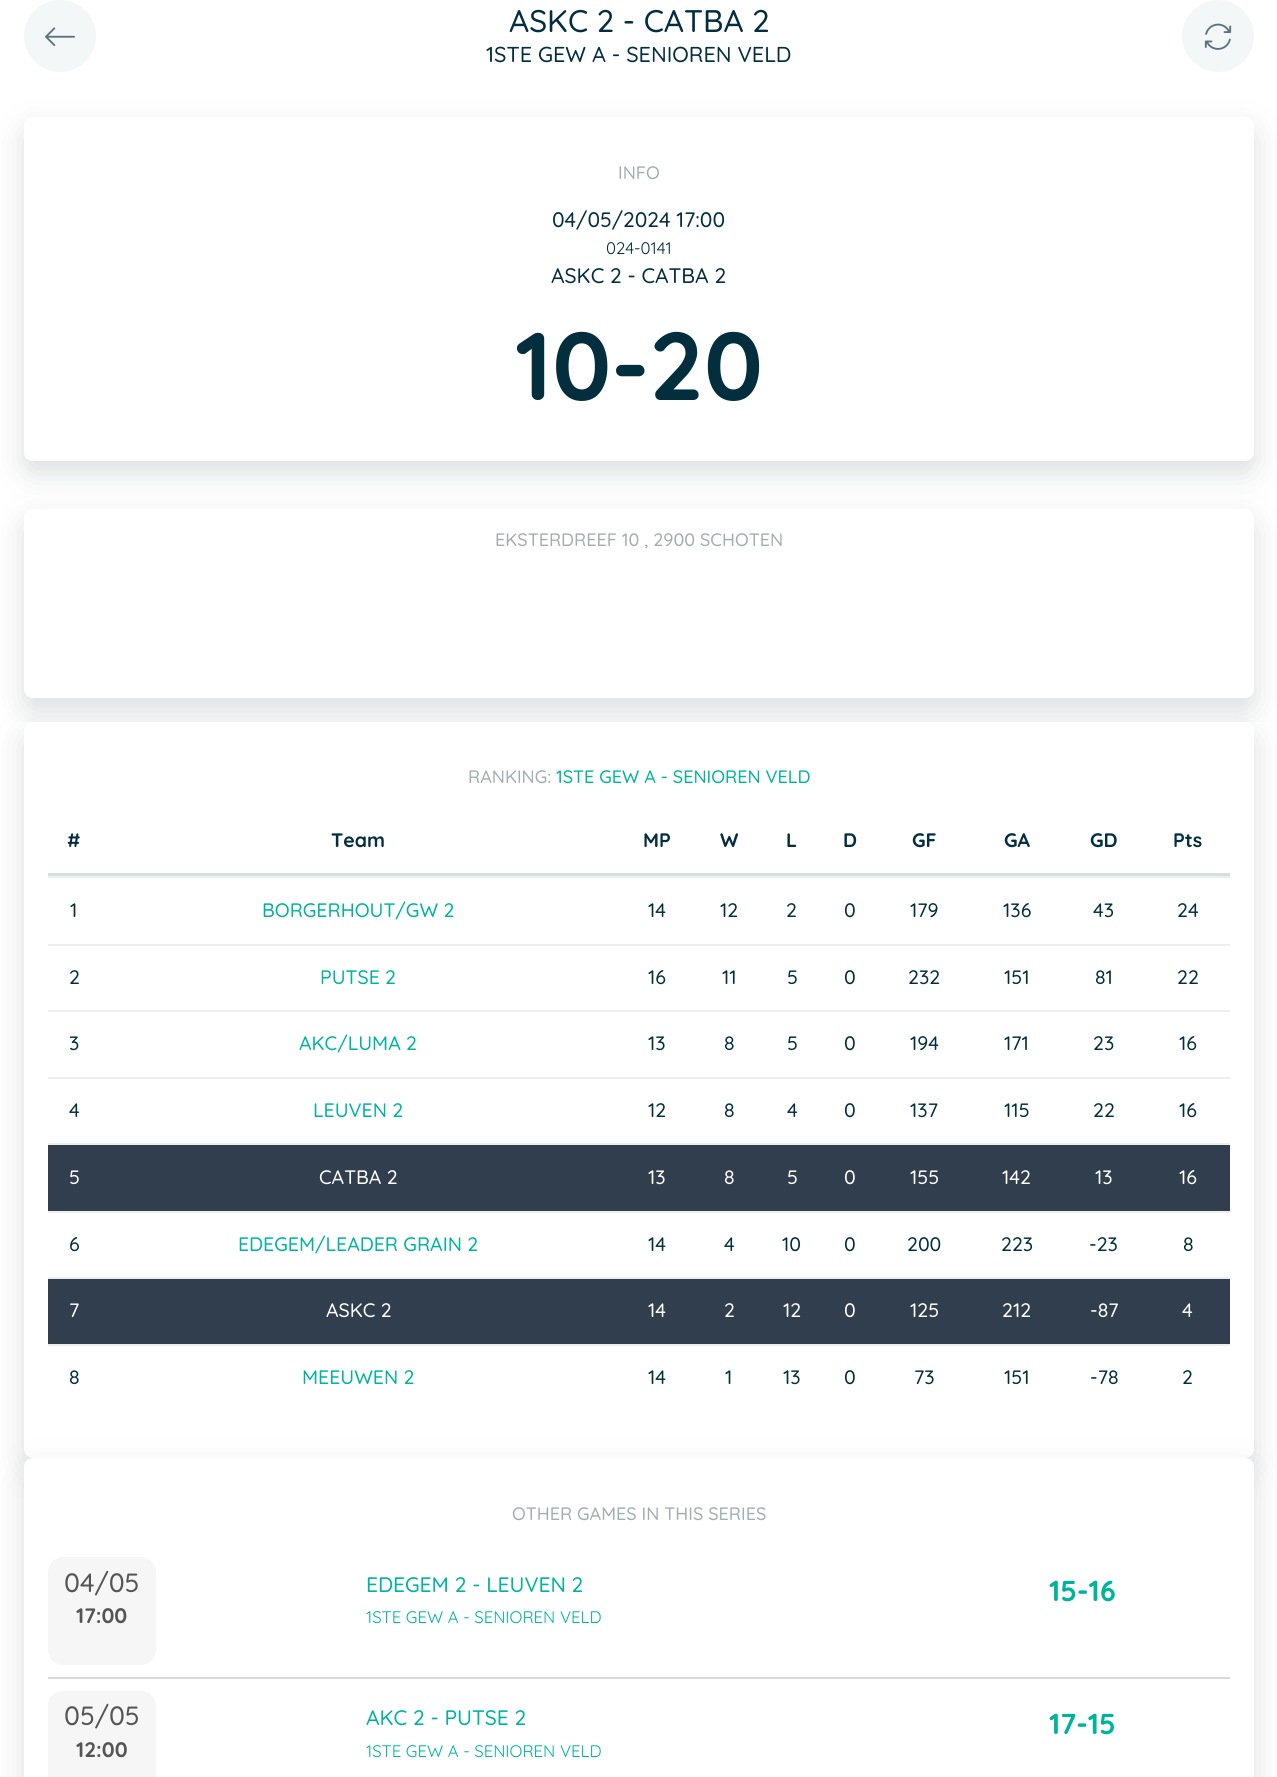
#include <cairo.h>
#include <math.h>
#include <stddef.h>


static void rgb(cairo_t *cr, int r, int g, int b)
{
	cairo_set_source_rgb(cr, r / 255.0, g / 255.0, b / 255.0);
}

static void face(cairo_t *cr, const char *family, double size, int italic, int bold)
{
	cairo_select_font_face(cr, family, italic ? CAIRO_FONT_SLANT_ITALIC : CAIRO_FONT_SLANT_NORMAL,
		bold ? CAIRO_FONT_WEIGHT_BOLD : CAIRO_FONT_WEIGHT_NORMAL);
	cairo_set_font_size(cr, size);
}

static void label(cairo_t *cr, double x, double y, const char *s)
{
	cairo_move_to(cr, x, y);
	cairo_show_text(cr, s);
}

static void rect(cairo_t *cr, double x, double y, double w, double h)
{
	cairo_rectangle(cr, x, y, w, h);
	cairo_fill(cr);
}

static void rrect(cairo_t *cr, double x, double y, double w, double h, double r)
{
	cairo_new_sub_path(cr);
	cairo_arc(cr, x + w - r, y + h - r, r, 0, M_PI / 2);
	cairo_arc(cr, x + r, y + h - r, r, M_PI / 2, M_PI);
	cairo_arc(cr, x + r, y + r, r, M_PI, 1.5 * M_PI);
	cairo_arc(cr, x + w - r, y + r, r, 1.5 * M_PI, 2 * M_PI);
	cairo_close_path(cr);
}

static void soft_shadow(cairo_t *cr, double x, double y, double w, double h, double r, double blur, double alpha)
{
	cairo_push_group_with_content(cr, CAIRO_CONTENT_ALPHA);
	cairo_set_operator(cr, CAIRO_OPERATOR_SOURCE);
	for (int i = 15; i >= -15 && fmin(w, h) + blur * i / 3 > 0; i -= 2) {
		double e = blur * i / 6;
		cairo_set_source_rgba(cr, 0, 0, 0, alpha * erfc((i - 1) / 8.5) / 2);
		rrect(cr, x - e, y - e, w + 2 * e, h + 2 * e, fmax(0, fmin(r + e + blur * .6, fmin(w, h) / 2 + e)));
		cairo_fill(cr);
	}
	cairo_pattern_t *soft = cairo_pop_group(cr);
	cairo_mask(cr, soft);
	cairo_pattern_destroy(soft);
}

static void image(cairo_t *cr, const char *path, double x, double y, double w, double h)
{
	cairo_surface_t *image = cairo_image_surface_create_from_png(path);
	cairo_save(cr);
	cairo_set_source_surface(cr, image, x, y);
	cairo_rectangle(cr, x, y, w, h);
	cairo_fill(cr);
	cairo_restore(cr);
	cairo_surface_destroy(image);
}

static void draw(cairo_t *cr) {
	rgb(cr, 255, 255, 255);
	cairo_paint(cr);
	rgb(cr, 244, 247, 247);
	cairo_arc(cr, 60, 36, 35, 0, 2 * M_PI);
	cairo_fill_preserve(cr);
	cairo_stroke(cr);
	image(cr, "image0.png", 45, 27, 30, 20);
	face(cr, "Quicksand Medium", 31.25, 0, 0);
	rgb(cr, 2, 46, 62);
	label(cr, 509, 32, "ASKC 2 - CATBA 2");
	face(cr, "Quicksand Medium", 21.6, 0, 0);
	label(cr, 486, 62, "1STE GEW A - SENIOREN VELD");
	rgb(cr, 244, 247, 247);
	cairo_new_path(cr);
	cairo_arc(cr, 1218, 36, 35, 0, 2 * M_PI);
	cairo_fill_preserve(cr);
	cairo_stroke(cr);
	image(cr, "image1.png", 1204, 23, 28, 27);
	rgb(cr, 71, 92, 93);
	soft_shadow(cr, 24, 129, 1230, 344, 9, 15, 0.2);
	rgb(cr, 255, 255, 255);
	rrect(cr, 24, 117, 1230, 344, 9);
	cairo_fill(cr);
	face(cr, "Quicksand Medium", 18, 0, 0);
	rgb(cr, 163, 173, 174);
	label(cr, 618, 179, "INFO");
	face(cr, "Quicksand Medium", 21, 0, 0);
	rgb(cr, 2, 46, 62);
	label(cr, 552, 227, "04/05/2024 17:00");
	face(cr, "Quicksand", 16.75, 0, 0);
	label(cr, 606, 254, "024-0141");
	face(cr, "Quicksand Medium", 21, 0, 0);
	label(cr, 551, 283, "ASKC 2 - CATBA 2");
	face(cr, "Quicksand", 96, 0, 1);
	label(cr, 515, 400, "10-20");
	cairo_save(cr);
	cairo_rectangle(cr, 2, 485, 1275, 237);
	cairo_clip(cr);
	rgb(cr, 71, 92, 93);
	soft_shadow(cr, 24, 521, 1230, 189, 9, 15, 0.2);
	cairo_restore(cr);
	rgb(cr, 255, 255, 255);
	rrect(cr, 24, 509, 1230, 189, 9);
	cairo_fill(cr);
	face(cr, "Quicksand Medium", 18, 0, 0);
	rgb(cr, 163, 173, 174);
	label(cr, 495, 546, "EKSTERDREEF 10 , 2900 SCHOTEN");
	rgb(cr, 71, 92, 93);
	soft_shadow(cr, 24, 734, 1230, 736, 9, 15, 0.2);
	rgb(cr, 255, 255, 255);
	rrect(cr, 24, 722, 1230, 736, 9);
	cairo_fill(cr);
	rgb(cr, 163, 173, 174);
	label(cr, 468, 783, "RANKING:");
	rgb(cr, 0, 180, 156);
	label(cr, 556, 783, "1STE GEW A - SENIOREN VELD");
	rgb(cr, 212, 223, 225);
	rect(cr, 48, 873, 1182, 3);
	face(cr, "Quicksand", 19.5, 0, 1);
	rgb(cr, 2, 46, 62);
	label(cr, 67, 847, "#");
	label(cr, 331, 847, "Team");
	label(cr, 643, 847, "MP");
	label(cr, 720, 847, "W");
	label(cr, 786, 847, "L");
	label(cr, 843, 847, "D");
	label(cr, 912, 847, "GF");
	label(cr, 1004, 847, "GA");
	label(cr, 1090, 847, "GD");
	label(cr, 1173, 847, "Pts");
	rgb(cr, 238, 238, 238);
	rect(cr, 48, 876, 1182, 2);
	face(cr, "Quicksand Medium", 19.5, 0, 0);
	rgb(cr, 2, 46, 62);
	label(cr, 70, 917, "1");
	rgb(cr, 0, 180, 156);
	label(cr, 262, 917, "BORGERHOUT/GW 2");
	rgb(cr, 2, 46, 62);
	label(cr, 648, 917, "14");
	label(cr, 720, 917, "12");
	label(cr, 786, 917, "2");
	label(cr, 844, 917, "0");
	label(cr, 910, 917, "179");
	label(cr, 1003, 917, "136");
	label(cr, 1093, 917, "43");
	label(cr, 1177, 917, "24");
	rgb(cr, 238, 238, 238);
	rect(cr, 48, 944, 1182, 2);
	rgb(cr, 2, 46, 62);
	label(cr, 69, 984, "2");
	rgb(cr, 0, 180, 156);
	label(cr, 320, 984, "PUTSE 2");
	rgb(cr, 2, 46, 62);
	label(cr, 648, 984, "16");
	label(cr, 722, 984, "11");
	label(cr, 787, 984, "5");
	label(cr, 844, 984, "0");
	label(cr, 908, 984, "232");
	label(cr, 1004, 984, "151");
	label(cr, 1095, 984, "81");
	label(cr, 1177, 984, "22");
	rgb(cr, 238, 238, 238);
	rect(cr, 48, 1010, 1182, 2);
	rgb(cr, 2, 46, 62);
	label(cr, 69, 1050, "3");
	rgb(cr, 0, 180, 156);
	label(cr, 299, 1050, "AKC/LUMA 2");
	rgb(cr, 2, 46, 62);
	label(cr, 648, 1050, "13");
	label(cr, 724, 1050, "8");
	label(cr, 787, 1050, "5");
	label(cr, 844, 1050, "0");
	label(cr, 910, 1050, "194");
	label(cr, 1004, 1050, "171");
	label(cr, 1093, 1050, "23");
	label(cr, 1179, 1050, "16");
	rgb(cr, 238, 238, 238);
	rect(cr, 48, 1077, 1182, 2);
	rgb(cr, 2, 46, 62);
	label(cr, 69, 1117, "4");
	rgb(cr, 0, 180, 156);
	label(cr, 313, 1117, "LEUVEN 2");
	rgb(cr, 2, 46, 62);
	label(cr, 648, 1117, "12");
	label(cr, 724, 1117, "8");
	label(cr, 787, 1117, "4");
	label(cr, 844, 1117, "0");
	label(cr, 910, 1117, "137");
	label(cr, 1004, 1117, "115");
	label(cr, 1093, 1117, "22");
	label(cr, 1179, 1117, "16");
	rgb(cr, 48, 62, 77);
	rect(cr, 48, 1145, 1182, 66);
	rgb(cr, 238, 238, 238);
	rect(cr, 48, 1143, 1182, 2);
	rgb(cr, 255, 255, 255);
	label(cr, 69, 1184, "5");
	label(cr, 319, 1184, "CATBA 2");
	label(cr, 648, 1184, "13");
	label(cr, 724, 1184, "8");
	label(cr, 787, 1184, "5");
	label(cr, 844, 1184, "0");
	label(cr, 910, 1184, "155");
	label(cr, 1002, 1184, "142");
	label(cr, 1095, 1184, "13");
	label(cr, 1179, 1184, "16");
	rgb(cr, 238, 238, 238);
	rect(cr, 48, 1211, 1182, 2);
	rgb(cr, 2, 46, 62);
	label(cr, 69, 1251, "6");
	rgb(cr, 0, 180, 156);
	label(cr, 238, 1251, "EDEGEM/LEADER GRAIN 2");
	rgb(cr, 2, 46, 62);
	label(cr, 648, 1251, "14");
	label(cr, 724, 1251, "4");
	label(cr, 782, 1251, "10");
	label(cr, 844, 1251, "0");
	label(cr, 907, 1251, "200");
	label(cr, 1001, 1251, "223");
	label(cr, 1089, 1251, "-23");
	label(cr, 1183, 1251, "8");
	rgb(cr, 48, 62, 77);
	rect(cr, 48, 1279, 1182, 65);
	rgb(cr, 238, 238, 238);
	rect(cr, 48, 1277, 1182, 2);
	rgb(cr, 255, 255, 255);
	label(cr, 69, 1317, "7");
	label(cr, 326, 1317, "ASKC 2");
	label(cr, 648, 1317, "14");
	label(cr, 724, 1317, "2");
	label(cr, 783, 1317, "12");
	label(cr, 844, 1317, "0");
	label(cr, 910, 1317, "125");
	label(cr, 1002, 1317, "212");
	label(cr, 1090, 1317, "-87");
	label(cr, 1182, 1317, "4");
	rgb(cr, 238, 238, 238);
	rect(cr, 48, 1344, 1182, 2);
	rgb(cr, 2, 46, 62);
	label(cr, 69, 1384, "8");
	rgb(cr, 0, 180, 156);
	label(cr, 302, 1384, "MEEUWEN 2");
	rgb(cr, 2, 46, 62);
	label(cr, 648, 1384, "14");
	label(cr, 725, 1384, "1");
	label(cr, 783, 1384, "13");
	label(cr, 844, 1384, "0");
	label(cr, 914, 1384, "73");
	label(cr, 1004, 1384, "151");
	label(cr, 1090, 1384, "-78");
	label(cr, 1182, 1384, "2");
	rgb(cr, 71, 92, 93);
	soft_shadow(cr, 24, 1470, 1230, 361, 9, 15, 0.2);
	rgb(cr, 255, 255, 255);
	cairo_new_path(cr);
	cairo_move_to(cr, 33, 1458);
	cairo_line_to(cr, 1245, 1458);
	cairo_curve_to(cr, 1250, 1458, 1254, 1462, 1254, 1467);
	cairo_line_to(cr, 1254, 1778);
	cairo_line_to(cr, 24, 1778);
	cairo_line_to(cr, 24, 1467);
	cairo_curve_to(cr, 24, 1462, 28, 1458, 33, 1458);
	cairo_close_path(cr);
	cairo_fill(cr);
	face(cr, "Quicksand Medium", 18, 0, 0);
	rgb(cr, 163, 173, 174);
	label(cr, 512, 1520, "OTHER GAMES IN THIS SERIES");
	rgb(cr, 217, 217, 217);
	rect(cr, 48, 1677, 1182, 2);
	rgb(cr, 246, 246, 246);
	rrect(cr, 48, 1557, 108, 108, 15);
	cairo_fill(cr);
	face(cr, "Quicksand Medium", 26.5, 0, 0);
	rgb(cr, 85, 85, 85);
	label(cr, 64, 1592, "04/05");
	face(cr, "Quicksand", 21, 0, 1);
	label(cr, 76, 1623, "17:00");
	face(cr, "Quicksand Medium", 21, 0, 0);
	rgb(cr, 0, 180, 156);
	label(cr, 366, 1592, "EDEGEM 2 - LEUVEN 2");
	face(cr, "Quicksand", 16.75, 0, 0);
	label(cr, 366, 1623, "1STE GEW A - SENIOREN VELD");
	face(cr, "Quicksand", 29, 0, 1);
	label(cr, 1049, 1601, "15-16");
	rgb(cr, 246, 246, 246);
	cairo_new_path(cr);
	cairo_move_to(cr, 63, 1691);
	cairo_line_to(cr, 141, 1691);
	cairo_curve_to(cr, 149.5, 1691, 156, 1697.5, 156, 1706);
	cairo_line_to(cr, 156, 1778);
	cairo_line_to(cr, 48, 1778);
	cairo_line_to(cr, 48, 1706);
	cairo_curve_to(cr, 48, 1697.5, 54.5, 1691, 63, 1691);
	cairo_close_path(cr);
	cairo_fill(cr);
	face(cr, "Quicksand Medium", 26.5, 0, 0);
	rgb(cr, 85, 85, 85);
	label(cr, 64, 1725, "05/05");
	face(cr, "Quicksand", 21, 0, 1);
	label(cr, 76, 1757, "12:00");
	face(cr, "Quicksand Medium", 21, 0, 0);
	rgb(cr, 0, 180, 156);
	label(cr, 366, 1725, "AKC 2 - PUTSE 2");
	face(cr, "Quicksand", 16.75, 0, 0);
	label(cr, 366, 1757, "1STE GEW A - SENIOREN VELD");
	face(cr, "Quicksand", 29, 0, 1);
	label(cr, 1049, 1734, "17-15");
}

int main(void) {
	cairo_surface_t *surface = cairo_image_surface_create(CAIRO_FORMAT_RGB24, 1277, 1777);
	cairo_t *cr = cairo_create(surface);
	cairo_font_options_t *options = cairo_font_options_create();
	cairo_font_options_set_hint_metrics(options, CAIRO_HINT_METRICS_OFF);
	cairo_font_options_set_hint_style(options, CAIRO_HINT_STYLE_NONE);
	cairo_set_font_options(cr, options);
	cairo_set_miter_limit(cr, 4);
	draw(cr);
	cairo_surface_write_to_png(surface, "render.png");
	cairo_font_options_destroy(options);
	cairo_destroy(cr);
	cairo_surface_destroy(surface);
	return 0;
}
